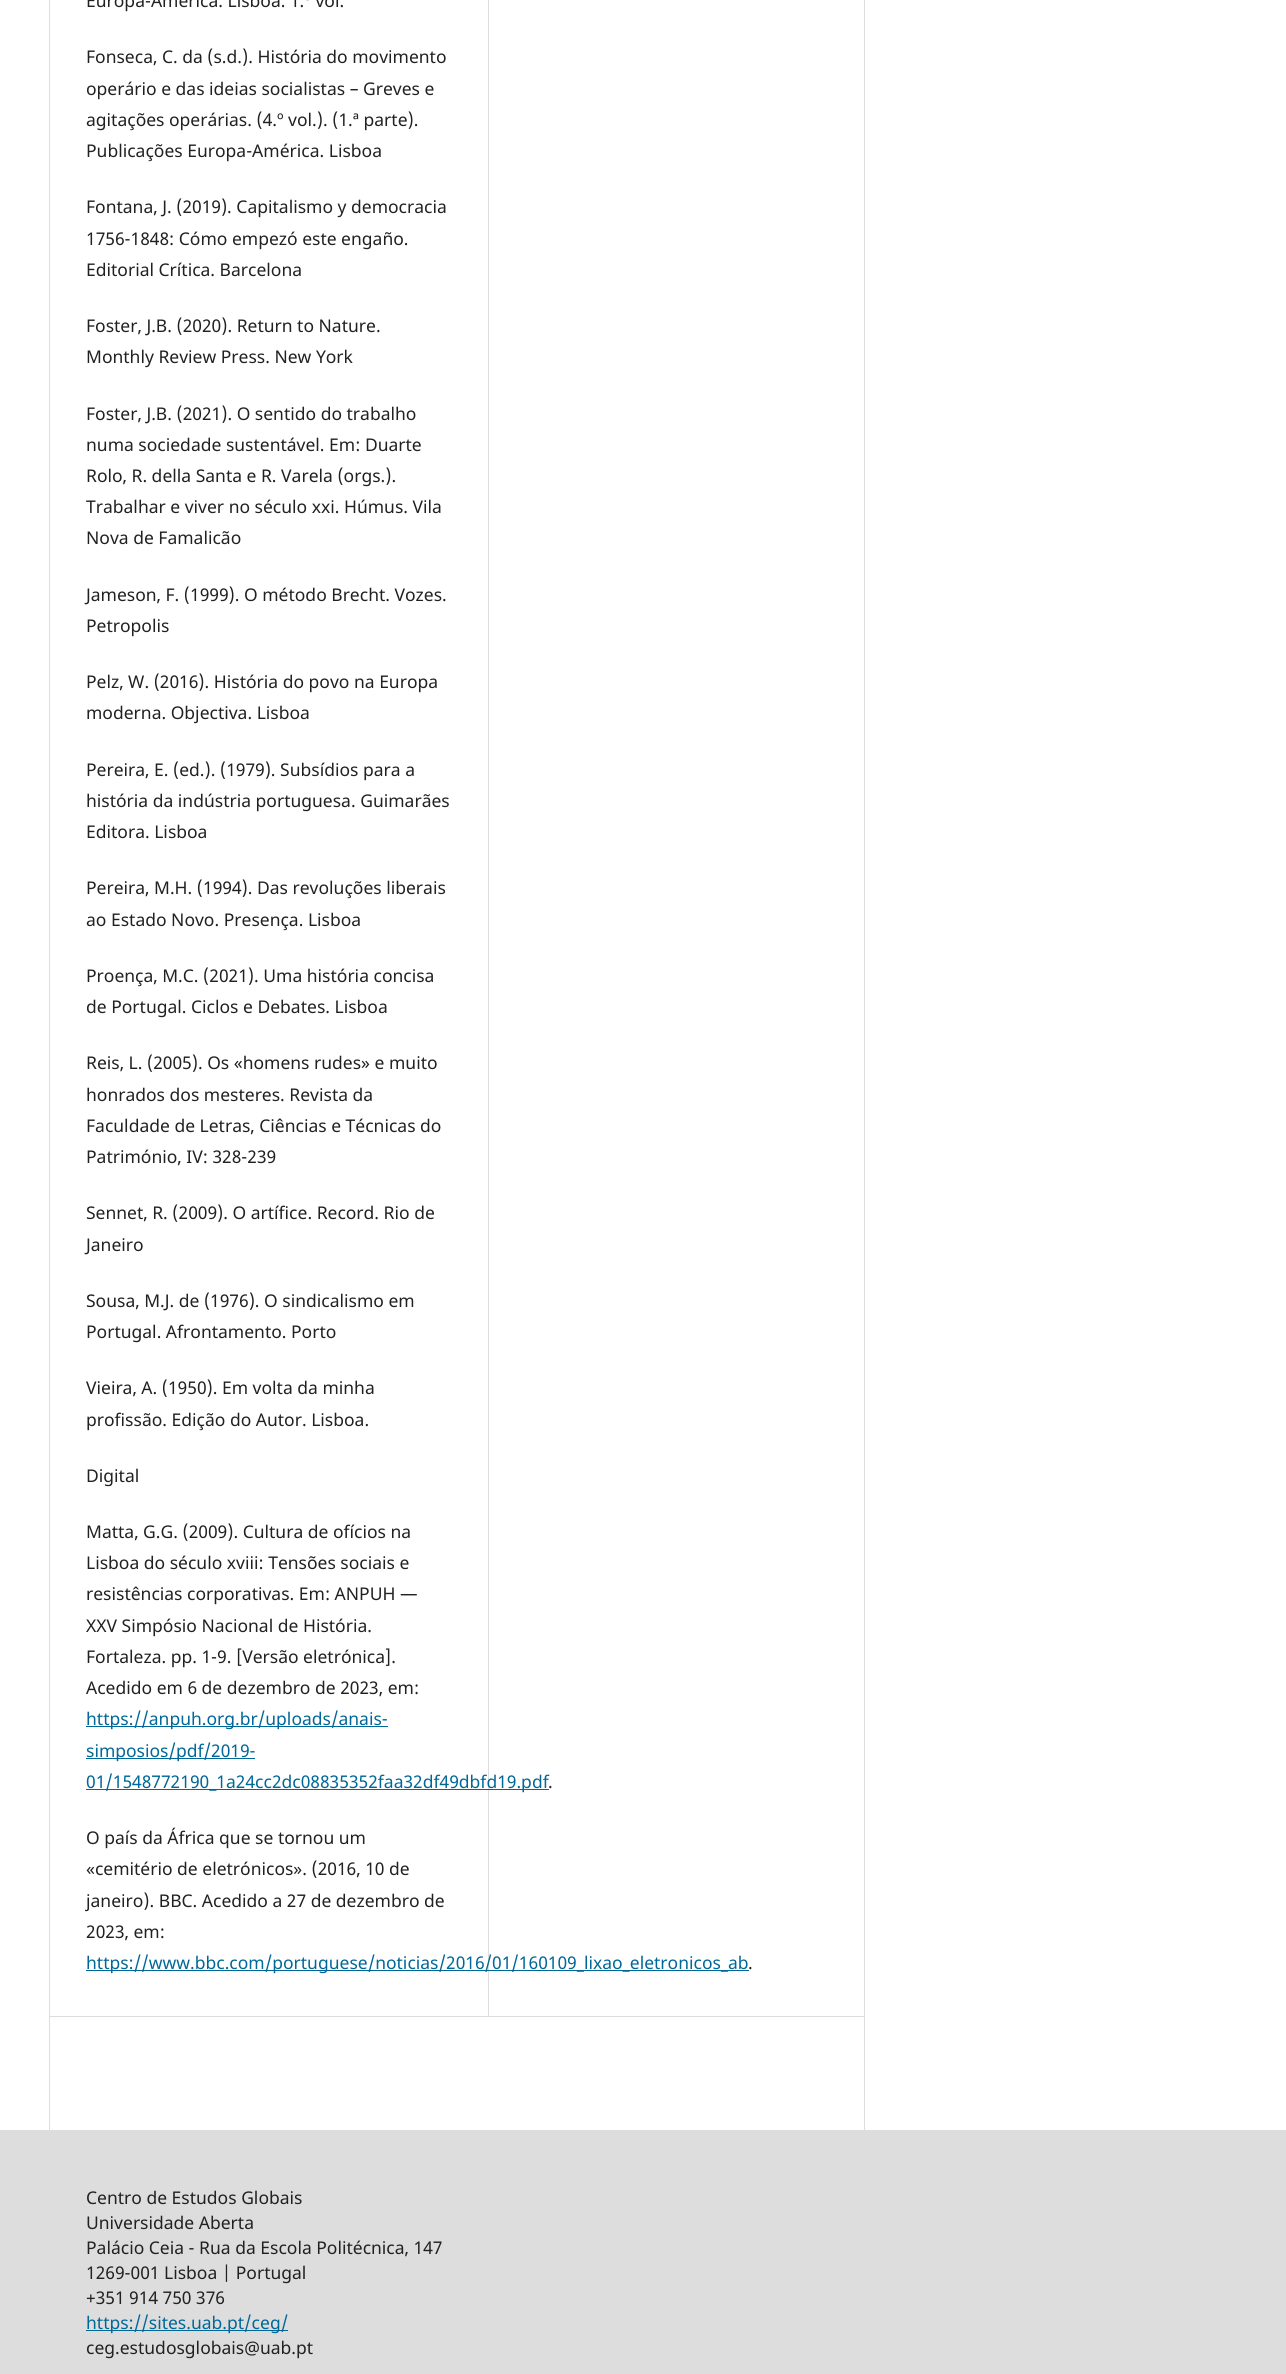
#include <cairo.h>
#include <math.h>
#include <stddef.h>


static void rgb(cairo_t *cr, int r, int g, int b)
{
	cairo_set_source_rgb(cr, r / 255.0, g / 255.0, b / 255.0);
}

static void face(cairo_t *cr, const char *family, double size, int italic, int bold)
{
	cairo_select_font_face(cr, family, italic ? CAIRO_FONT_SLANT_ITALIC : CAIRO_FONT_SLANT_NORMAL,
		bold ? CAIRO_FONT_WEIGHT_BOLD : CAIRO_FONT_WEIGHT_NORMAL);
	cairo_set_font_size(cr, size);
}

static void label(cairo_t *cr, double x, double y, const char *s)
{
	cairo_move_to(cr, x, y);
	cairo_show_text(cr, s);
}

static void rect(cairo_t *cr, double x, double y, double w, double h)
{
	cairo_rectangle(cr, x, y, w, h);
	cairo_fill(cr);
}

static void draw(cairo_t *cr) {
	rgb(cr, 255, 255, 255);
	cairo_paint(cr);
	rgb(cr, 221, 221, 221);
	rect(cr, 49, 2016, 815, 1);
	rect(cr, 49, 0, 1, 2130);
	rect(cr, 488, 0, 1, 2016);
	face(cr, "Noto Sans", 17.5, 0, 0);
	rgb(cr, 33, 33, 33);
	label(cr, 86, 7, "Europa-América. Lisboa. 1.º vol.");
	label(cr, 86, 63, "Fonseca, C. da (s.d.). História do movimento");
	label(cr, 86, 95, "operário e das ideias socialistas – Greves e");
	label(cr, 86, 126, "agitações operárias. (4.º vol.). (1.ª parte).");
	label(cr, 86, 157, "Publicações Europa-América. Lisboa");
	label(cr, 86, 213, "Fontana, J. (2019). Capitalismo y democracia");
	label(cr, 86, 245, "1756-1848: Cómo empezó este engaño.");
	label(cr, 86, 276, "Editorial Crítica. Barcelona");
	label(cr, 86, 332, "Foster, J.B. (2020). Return to Nature.");
	label(cr, 86, 363, "Monthly Review Press. New York");
	label(cr, 86, 420, "Foster, J.B. (2021). O sentido do trabalho");
	label(cr, 86, 451, "numa sociedade sustentável. Em: Duarte");
	label(cr, 86, 482, "Rolo, R. della Santa e R. Varela (orgs.).");
	label(cr, 86, 513, "Trabalhar e viver no século xxi. Húmus. Vila");
	label(cr, 86, 544, "Nova de Famalicão");
	label(cr, 86, 601, "Jameson, F. (1999). O método Brecht. Vozes.");
	label(cr, 86, 632, "Petropolis");
	label(cr, 86, 688, "Pelz, W. (2016). História do povo na Europa");
	label(cr, 86, 719, "moderna. Objectiva. Lisboa");
	label(cr, 86, 776, "Pereira, E. (ed.). (1979). Subsídios para a");
	label(cr, 86, 807, "história da indústria portuguesa. Guimarães");
	label(cr, 86, 838, "Editora. Lisboa");
	label(cr, 86, 894, "Pereira, M.H. (1994). Das revoluções liberais");
	label(cr, 86, 926, "ao Estado Novo. Presença. Lisboa");
	label(cr, 86, 982, "Proença, M.C. (2021). Uma história concisa");
	label(cr, 86, 1013, "de Portugal. Ciclos e Debates. Lisboa");
	label(cr, 86, 1069, "Reis, L. (2005). Os «homens rudes» e muito");
	label(cr, 86, 1101, "honrados dos mesteres. Revista da");
	label(cr, 86, 1132, "Faculdade de Letras, Ciências e Técnicas do");
	label(cr, 86, 1163, "Património, IV: 328-239");
	label(cr, 86, 1219, "Sennet, R. (2009). O artífice. Record. Rio de");
	label(cr, 86, 1251, "Janeiro");
	label(cr, 86, 1307, "Sousa, M.J. de (1976). O sindicalismo em");
	label(cr, 86, 1338, "Portugal. Afrontamento. Porto");
	label(cr, 86, 1394, "Vieira, A. (1950). Em volta da minha");
	label(cr, 86, 1426, "profissão. Edição do Autor. Lisboa.");
	label(cr, 86, 1482, "Digital");
	label(cr, 86, 1538, "Matta, G.G. (2009). Cultura de ofícios na");
	label(cr, 86, 1569, "Lisboa do século xviii: Tensões sociais e");
	label(cr, 86, 1600, "resistências corporativas. Em: ANPUH —");
	label(cr, 86, 1632, "XXV Simpósio Nacional de História.");
	label(cr, 86, 1663, "Fortaleza. pp. 1-9. [Versão eletrónica].");
	label(cr, 86, 1694, "Acedido em 6 de dezembro de 2023, em:");
	rgb(cr, 0, 103, 152);
	rect(cr, 86, 1726, 302, 1);
	label(cr, 86, 1725, "https://anpuh.org.br/uploads/anais-");
	rect(cr, 86, 1758, 169, 1);
	label(cr, 86, 1757, "simposios/pdf/2019-");
	rect(cr, 86, 1789, 463, 1);
	label(cr, 86, 1788, "01/1548772190_1a24cc2dc08835352faa32df49dbfd19.pdf");
	rgb(cr, 33, 33, 33);
	label(cr, 548, 1788, ".");
	label(cr, 86, 1844, "O país da África que se tornou um");
	label(cr, 86, 1875, "«cemitério de eletrónicos». (2016, 10 de");
	label(cr, 86, 1907, "janeiro). BBC. Acedido a 27 de dezembro de");
	label(cr, 86, 1938, "2023, em:");
	rgb(cr, 0, 103, 152);
	rect(cr, 86, 1970, 663, 1);
	label(cr, 86, 1969, "https://www.bbc.com/portuguese/noticias/2016/01/160109_lixao_eletronicos_ab");
	rgb(cr, 33, 33, 33);
	label(cr, 748, 1969, ".");
	rgb(cr, 221, 221, 221);
	rect(cr, 864, 0, 1, 2130);
	rect(cr, 0, 2130, 1286, 244);
	rgb(cr, 33, 33, 33);
	label(cr, 86, 2204, "Centro de Estudos Globais");
	label(cr, 86, 2229, "Universidade Aberta");
	label(cr, 86, 2254, "Palácio Ceia - Rua da Escola Politécnica, 147");
	label(cr, 86, 2279, "1269-001 Lisboa | Portugal");
	label(cr, 86, 2304, "+351 914 750 376");
	rgb(cr, 0, 103, 152);
	rect(cr, 86, 2330, 202, 1);
	label(cr, 86, 2329, "https://sites.uab.pt/ceg/");
	rgb(cr, 33, 33, 33);
	label(cr, 86, 2354, "ceg.estudosglobais@uab.pt");
}

int main(void) {
	cairo_surface_t *surface = cairo_image_surface_create(CAIRO_FORMAT_RGB24, 1286, 2374);
	cairo_t *cr = cairo_create(surface);
	cairo_font_options_t *options = cairo_font_options_create();
	cairo_font_options_set_hint_metrics(options, CAIRO_HINT_METRICS_OFF);
	cairo_font_options_set_hint_style(options, CAIRO_HINT_STYLE_NONE);
	cairo_set_font_options(cr, options);
	cairo_set_miter_limit(cr, 4);
	draw(cr);
	cairo_surface_write_to_png(surface, "render.png");
	cairo_font_options_destroy(options);
	cairo_destroy(cr);
	cairo_surface_destroy(surface);
	return 0;
}
